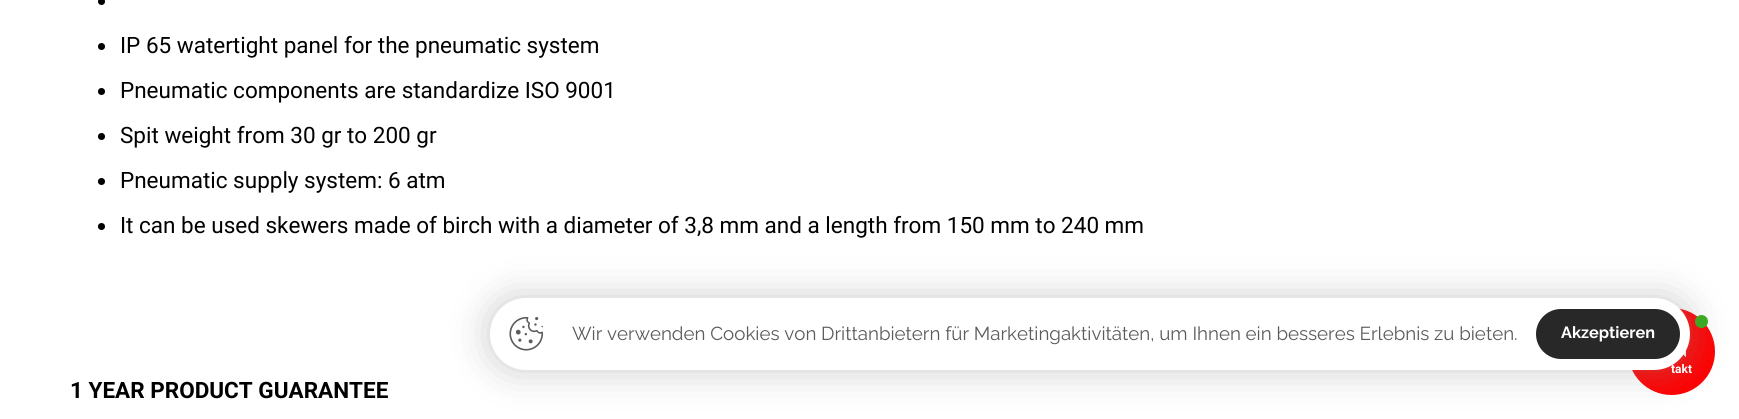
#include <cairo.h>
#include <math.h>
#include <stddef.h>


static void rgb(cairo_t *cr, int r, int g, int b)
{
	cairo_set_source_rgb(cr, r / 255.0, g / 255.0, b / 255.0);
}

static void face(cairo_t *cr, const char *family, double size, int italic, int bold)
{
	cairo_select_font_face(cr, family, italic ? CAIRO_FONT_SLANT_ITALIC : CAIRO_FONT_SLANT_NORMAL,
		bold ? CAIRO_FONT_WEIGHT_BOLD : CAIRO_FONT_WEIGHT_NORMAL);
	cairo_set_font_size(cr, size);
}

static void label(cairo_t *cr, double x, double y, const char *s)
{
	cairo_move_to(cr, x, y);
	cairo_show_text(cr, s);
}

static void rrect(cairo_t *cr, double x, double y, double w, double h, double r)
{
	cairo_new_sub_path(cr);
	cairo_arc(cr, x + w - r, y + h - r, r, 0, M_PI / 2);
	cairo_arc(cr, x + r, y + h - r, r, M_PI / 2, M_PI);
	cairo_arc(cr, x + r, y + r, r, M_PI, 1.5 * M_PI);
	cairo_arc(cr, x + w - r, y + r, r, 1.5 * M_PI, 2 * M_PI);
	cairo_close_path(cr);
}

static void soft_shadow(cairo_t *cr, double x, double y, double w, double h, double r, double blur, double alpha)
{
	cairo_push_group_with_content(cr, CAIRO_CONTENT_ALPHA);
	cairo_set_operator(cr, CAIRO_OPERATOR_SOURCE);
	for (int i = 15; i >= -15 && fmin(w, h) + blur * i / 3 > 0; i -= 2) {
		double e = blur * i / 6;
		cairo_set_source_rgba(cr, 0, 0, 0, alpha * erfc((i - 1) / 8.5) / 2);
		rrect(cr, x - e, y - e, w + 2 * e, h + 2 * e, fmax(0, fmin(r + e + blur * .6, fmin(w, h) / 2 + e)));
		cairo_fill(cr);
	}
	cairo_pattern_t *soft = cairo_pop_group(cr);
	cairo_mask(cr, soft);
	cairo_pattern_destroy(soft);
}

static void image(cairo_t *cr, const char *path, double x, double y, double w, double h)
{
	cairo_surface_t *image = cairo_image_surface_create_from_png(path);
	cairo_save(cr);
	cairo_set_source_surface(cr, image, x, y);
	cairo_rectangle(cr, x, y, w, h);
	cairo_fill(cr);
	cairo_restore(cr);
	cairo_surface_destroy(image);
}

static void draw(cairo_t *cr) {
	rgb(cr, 255, 255, 255);
	cairo_paint(cr);
	rgb(cr, 0, 0, 0);
	cairo_arc(cr, 101.5, 1.5, 3.5, 0, 2 * M_PI);
	cairo_fill(cr);
	cairo_arc(cr, 101.5, 46.5, 3.5, 0, 2 * M_PI);
	cairo_fill(cr);
	face(cr, "Roboto", 22.5, 0, 0);
	label(cr, 120, 53, "IP 65 watertight panel for the pneumatic system");
	cairo_new_path(cr);
	cairo_arc(cr, 101.5, 91.5, 3.5, 0, 2 * M_PI);
	cairo_fill(cr);
	label(cr, 120, 98, "Pneumatic components are standardize ISO 9001");
	cairo_new_path(cr);
	cairo_arc(cr, 101.5, 136.5, 3.5, 0, 2 * M_PI);
	cairo_fill(cr);
	label(cr, 120, 143, "Spit weight from 30 gr to 200 gr");
	cairo_new_path(cr);
	cairo_arc(cr, 101.5, 181.5, 3.5, 0, 2 * M_PI);
	cairo_fill(cr);
	label(cr, 120, 188, "Pneumatic supply system: 6 atm");
	cairo_new_path(cr);
	cairo_arc(cr, 101.5, 226.5, 3.5, 0, 2 * M_PI);
	cairo_fill(cr);
	label(cr, 120, 233, "It can be used skewers made of birch with a diameter of 3,8 mm and a length from 150 mm to 240 mm");
	face(cr, "Roboto", 22.5, 0, 1);
	label(cr, 70, 398, "1 YEAR PRODUCT GUARANTEE");
	rgb(cr, 255, 0, 0);
	cairo_new_path(cr);
	cairo_arc(cr, 1671.5, 351.5, 43.5, 0, 2 * M_PI);
	cairo_fill(cr);
	rgb(cr, 53, 172, 25);
	cairo_arc(cr, 1701.5, 321.5, 6.5, 0, 2 * M_PI);
	cairo_fill(cr);
	image(cr, "image1.png", 1683, 350, 3, 8);
	rgb(cr, 138, 138, 138);
	soft_shadow(cr, 490, 298, 1200, 72, 36, 19, 0.44);
	rgb(cr, 255, 255, 255);
	rrect(cr, 490, 298, 1200, 72, 36);
	cairo_fill(cr);
	image(cr, "image0.png", 509, 316, 35, 35);
	face(cr, "Raleway", 18.75, 0, 0);
	rgb(cr, 91, 91, 91);
	label(cr, 572, 340, "Wir verwenden Cookies von Drittanbietern für Marketingaktivitäten, um Ihnen ein besseres Erlebnis zu bieten.");
	rgb(cr, 40, 40, 40);
	rrect(cr, 1536, 309, 144, 50, 25);
	cairo_fill(cr);
	face(cr, "Raleway", 16.25, 0, 1);
	rgb(cr, 255, 255, 255);
	label(cr, 1561, 338, "Akzeptieren");
	face(cr, "Roboto", 12, 0, 1);
	label(cr, 1671, 373, "takt");
}

int main(void) {
	cairo_surface_t *surface = cairo_image_surface_create(CAIRO_FORMAT_RGB24, 1739, 419);
	cairo_t *cr = cairo_create(surface);
	cairo_font_options_t *options = cairo_font_options_create();
	cairo_font_options_set_hint_metrics(options, CAIRO_HINT_METRICS_OFF);
	cairo_font_options_set_hint_style(options, CAIRO_HINT_STYLE_NONE);
	cairo_set_font_options(cr, options);
	cairo_set_miter_limit(cr, 4);
	draw(cr);
	cairo_surface_write_to_png(surface, "render.png");
	cairo_font_options_destroy(options);
	cairo_destroy(cr);
	cairo_surface_destroy(surface);
	return 0;
}
